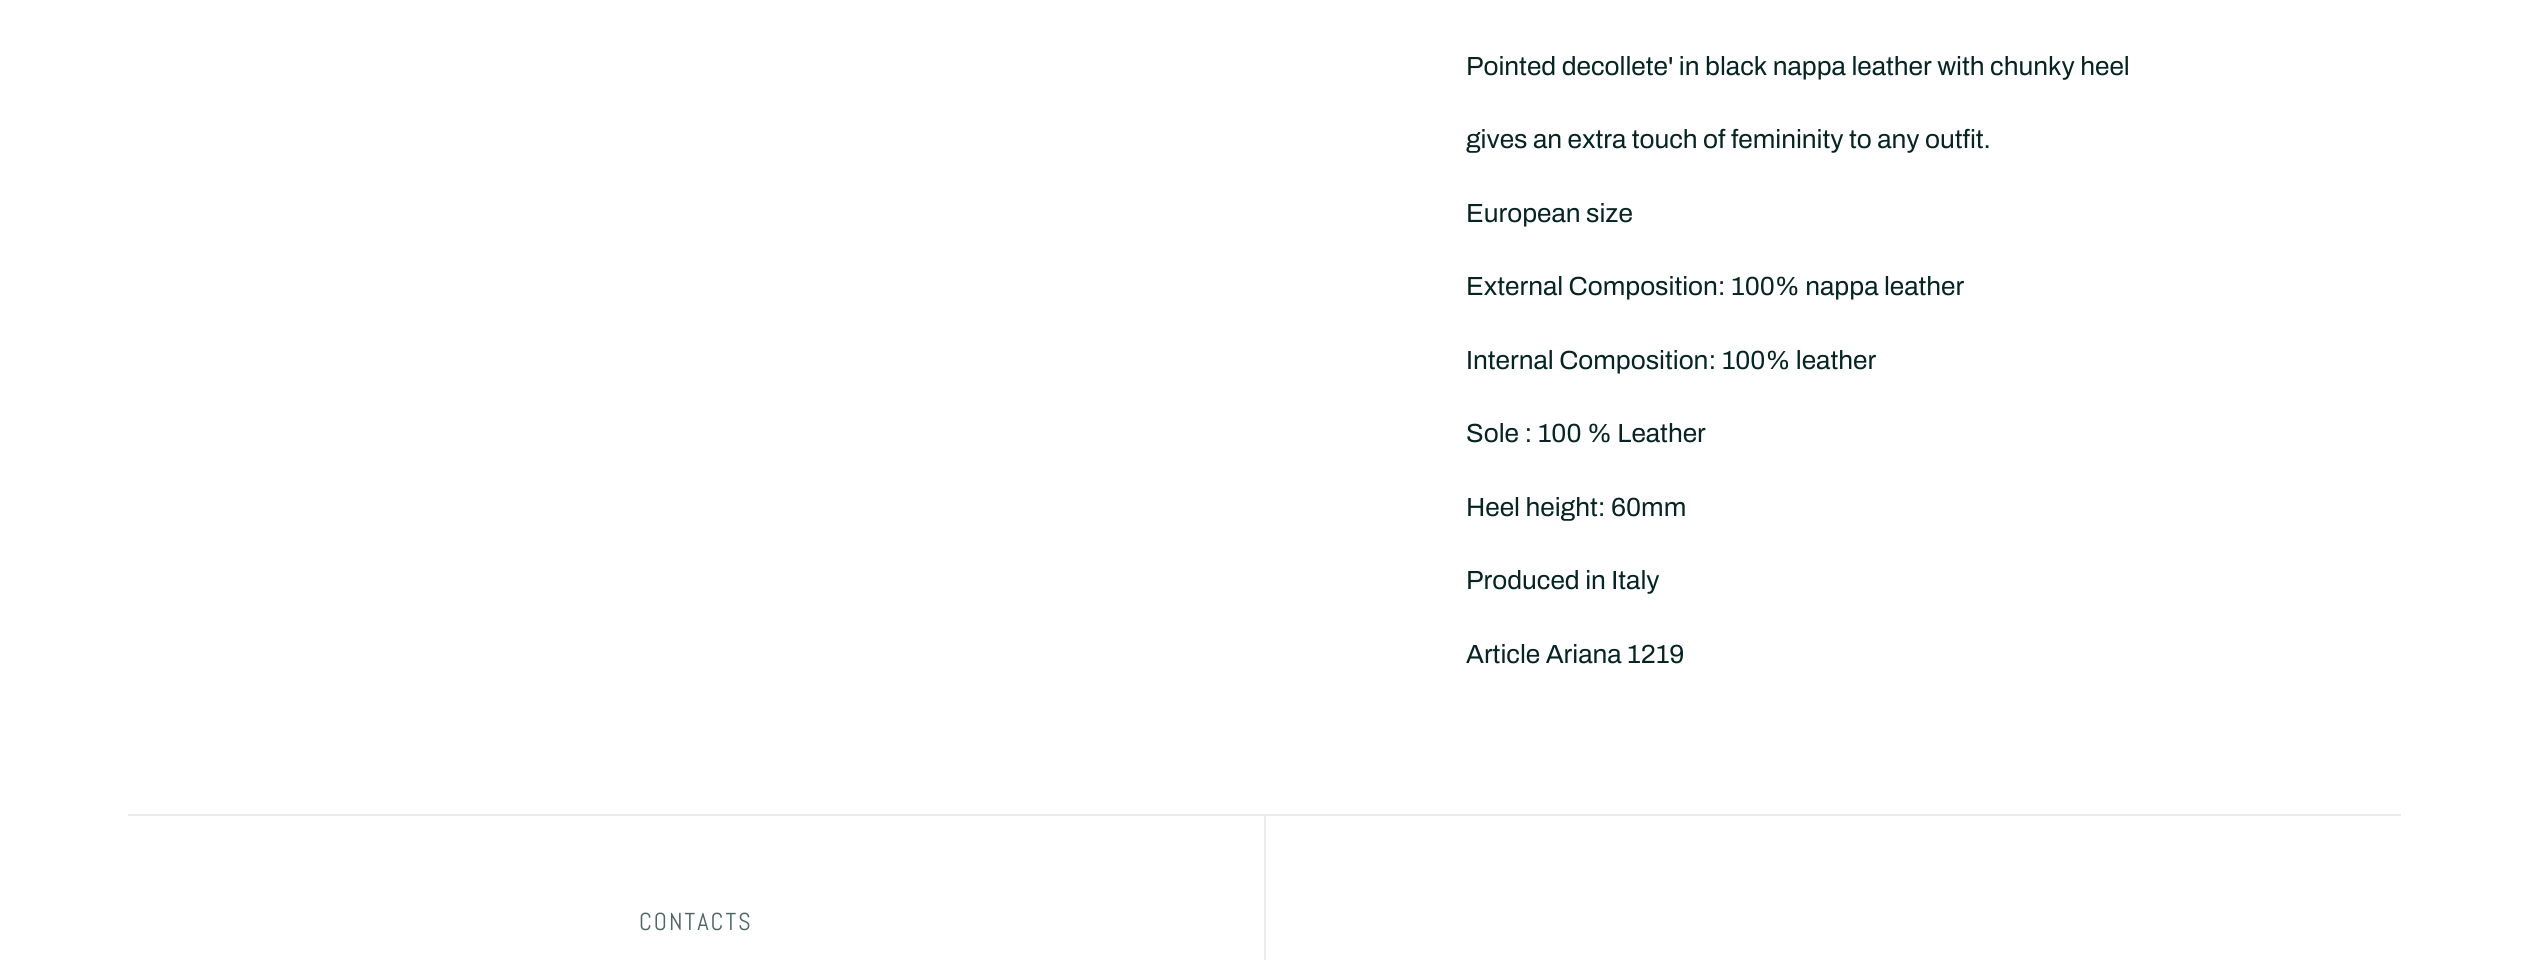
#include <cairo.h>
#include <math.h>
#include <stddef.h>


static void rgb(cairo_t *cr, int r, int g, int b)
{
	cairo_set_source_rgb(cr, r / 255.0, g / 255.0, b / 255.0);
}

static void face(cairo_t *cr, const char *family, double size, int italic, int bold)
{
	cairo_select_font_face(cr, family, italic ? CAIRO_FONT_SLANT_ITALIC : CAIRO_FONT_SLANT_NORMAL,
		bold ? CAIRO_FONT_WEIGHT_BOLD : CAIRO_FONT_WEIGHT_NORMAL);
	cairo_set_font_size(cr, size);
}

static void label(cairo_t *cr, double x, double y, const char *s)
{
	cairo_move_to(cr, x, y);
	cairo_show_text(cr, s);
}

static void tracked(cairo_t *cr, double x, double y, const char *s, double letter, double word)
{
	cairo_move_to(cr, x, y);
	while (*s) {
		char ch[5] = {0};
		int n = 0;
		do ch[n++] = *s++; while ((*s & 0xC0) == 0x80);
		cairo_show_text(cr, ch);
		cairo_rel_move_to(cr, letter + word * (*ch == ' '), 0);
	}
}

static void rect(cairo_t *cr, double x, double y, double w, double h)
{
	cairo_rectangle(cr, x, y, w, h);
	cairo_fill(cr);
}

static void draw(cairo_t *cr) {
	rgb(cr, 255, 255, 255);
	cairo_paint(cr);
	face(cr, "Archivo", 26.25, 0, 0);
	rgb(cr, 5, 36, 34);
	label(cr, 1466, 75, "Pointed decollete' in black nappa leather with chunky heel");
	label(cr, 1466, 148, "gives an extra touch of femininity to any outfit.");
	label(cr, 1466, 222, "European size");
	label(cr, 1466, 295, "External Composition: 100% nappa leather");
	label(cr, 1466, 369, "Internal Composition: 100% leather");
	label(cr, 1466, 442, "Sole : 100 % Leather");
	label(cr, 1466, 516, "Heel height: 60mm");
	label(cr, 1466, 589, "Produced in Italy");
	label(cr, 1466, 663, "Article Ariana 1219");
	rgb(cr, 235, 235, 235);
	rect(cr, 128, 814, 2273, 2);
	face(cr, "Abel", 24.5, 0, 0);
	rgb(cr, 80, 101, 100);
	tracked(cr, 639, 930, "CONTACTS", 2, 0);
	rgb(cr, 235, 235, 235);
	rect(cr, 1264, 816, 2, 144);
}

int main(void) {
	cairo_surface_t *surface = cairo_image_surface_create(CAIRO_FORMAT_RGB24, 2528, 960);
	cairo_t *cr = cairo_create(surface);
	cairo_font_options_t *options = cairo_font_options_create();
	cairo_font_options_set_hint_metrics(options, CAIRO_HINT_METRICS_OFF);
	cairo_font_options_set_hint_style(options, CAIRO_HINT_STYLE_NONE);
	cairo_set_font_options(cr, options);
	cairo_set_miter_limit(cr, 4);
	draw(cr);
	cairo_surface_write_to_png(surface, "render.png");
	cairo_font_options_destroy(options);
	cairo_destroy(cr);
	cairo_surface_destroy(surface);
	return 0;
}
